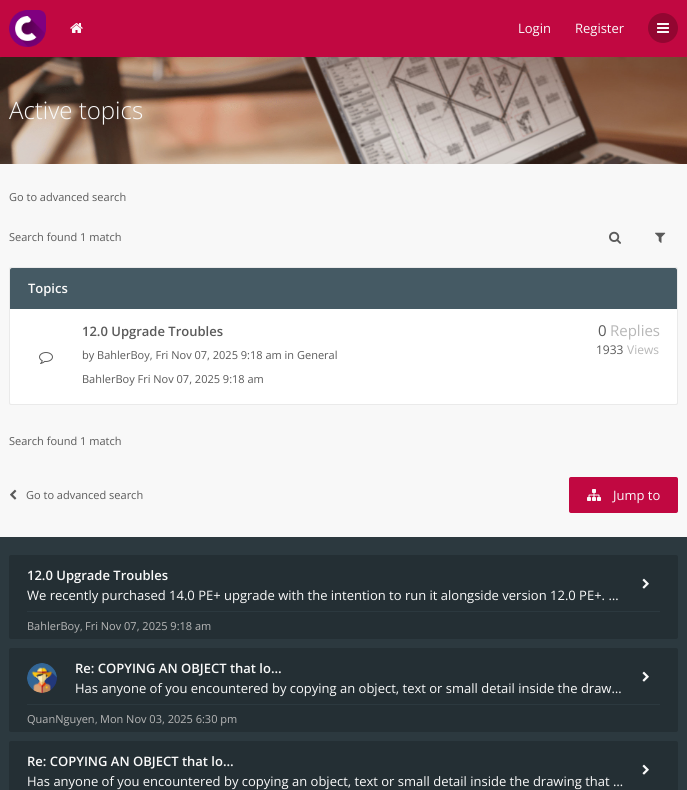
#include <cairo.h>
#include <math.h>
#include <stddef.h>


static void rgb(cairo_t *cr, int r, int g, int b)
{
	cairo_set_source_rgb(cr, r / 255.0, g / 255.0, b / 255.0);
}

static void face(cairo_t *cr, const char *family, double size, int italic, int bold)
{
	cairo_select_font_face(cr, family, italic ? CAIRO_FONT_SLANT_ITALIC : CAIRO_FONT_SLANT_NORMAL,
		bold ? CAIRO_FONT_WEIGHT_BOLD : CAIRO_FONT_WEIGHT_NORMAL);
	cairo_set_font_size(cr, size);
}

static void label(cairo_t *cr, double x, double y, const char *s)
{
	cairo_move_to(cr, x, y);
	cairo_show_text(cr, s);
}

static void rect(cairo_t *cr, double x, double y, double w, double h)
{
	cairo_rectangle(cr, x, y, w, h);
	cairo_fill(cr);
}

static void rrect(cairo_t *cr, double x, double y, double w, double h, double r)
{
	cairo_new_sub_path(cr);
	cairo_arc(cr, x + w - r, y + h - r, r, 0, M_PI / 2);
	cairo_arc(cr, x + r, y + h - r, r, M_PI / 2, M_PI);
	cairo_arc(cr, x + r, y + r, r, M_PI, 1.5 * M_PI);
	cairo_arc(cr, x + w - r, y + r, r, 1.5 * M_PI, 2 * M_PI);
	cairo_close_path(cr);
}

static void image(cairo_t *cr, const char *path, double x, double y, double w, double h)
{
	cairo_surface_t *image = cairo_image_surface_create_from_png(path);
	cairo_save(cr);
	cairo_set_source_surface(cr, image, x, y);
	cairo_rectangle(cr, x, y, w, h);
	cairo_fill(cr);
	cairo_restore(cr);
	cairo_surface_destroy(image);
}

static void draw(cairo_t *cr) {
	rgb(cr, 248, 248, 248);
	cairo_paint(cr);
	rgb(cr, 193, 8, 65);
	rect(cr, 0, 0, 687, 57);
	image(cr, "image0.png", 9, 10, 37, 37);
	image(cr, "image1.png", 70, 23, 13, 10);
	face(cr, "Open Sans", 13, 0, 0);
	rgb(cr, 250, 250, 250);
	label(cr, 518, 33, "Login");
	label(cr, 575, 33, "Register");
	rgb(cr, 147, 6, 49);
	cairo_new_path(cr);
	cairo_arc(cr, 663, 28, 15, 0, 2 * M_PI);
	cairo_fill(cr);
	image(cr, "image2.png", 657, 23, 12, 10);
	image(cr, "image3.png", 0, 57, 687, 107);
	face(cr, "Open Sans Light", 24, 0, 0);
	rgb(cr, 250, 250, 250);
	label(cr, 9, 119, "Active topics");
	face(cr, "Open Sans", 11, 0, 0);
	rgb(cr, 90, 90, 90);
	label(cr, 9, 201, "Go to advanced search");
	label(cr, 9, 241, "Search found 1 match");
	image(cr, "image4.png", 609, 231, 12, 13);
	image(cr, "image5.png", 655, 232, 11, 11);
	rrect(cr, 9.5, 267.5, 668, 137, 1.5);
	rgb(cr, 234, 234, 234);
	cairo_set_line_width(cr, 1);
	cairo_stroke(cr);
	rgb(cr, 69, 90, 100);
	cairo_new_path(cr);
	cairo_move_to(cr, 12, 268);
	cairo_line_to(cr, 675, 268);
	cairo_curve_to(cr, 676, 268, 677, 269, 677, 270);
	cairo_line_to(cr, 677, 309);
	cairo_line_to(cr, 10, 309);
	cairo_line_to(cr, 10, 270);
	cairo_curve_to(cr, 10, 269, 11, 268, 12, 268);
	cairo_close_path(cr);
	cairo_fill(cr);
	face(cr, "Open Sans SemiBold", 13, 0, 0);
	rgb(cr, 250, 250, 250);
	label(cr, 28, 293, "Topics");
	rgb(cr, 255, 255, 255);
	cairo_new_path(cr);
	cairo_move_to(cr, 10, 309);
	cairo_line_to(cr, 677, 309);
	cairo_line_to(cr, 677, 402);
	cairo_curve_to(cr, 677, 403, 676, 404, 675, 404);
	cairo_line_to(cr, 12, 404);
	cairo_curve_to(cr, 11, 404, 10, 403, 10, 402);
	cairo_close_path(cr);
	cairo_fill(cr);
	image(cr, "image6.png", 39, 352, 14, 12);
	rgb(cr, 90, 90, 90);
	label(cr, 82, 336, "12.0 Upgrade Troubles");
	face(cr, "Open Sans", 11, 0, 0);
	label(cr, 82, 359, "by BahlerBoy, Fri Nov 07, 2025 9:18 am in General");
	face(cr, "Open Sans", 15, 0, 0);
	label(cr, 598, 336, "0");
	rgb(cr, 183, 183, 183);
	label(cr, 610, 336, "Replies");
	face(cr, "Open Sans", 12, 0, 0);
	rgb(cr, 90, 90, 90);
	label(cr, 596, 354, "1933");
	rgb(cr, 183, 183, 183);
	label(cr, 627, 354, "Views");
	face(cr, "Open Sans", 11, 0, 0);
	rgb(cr, 90, 90, 90);
	label(cr, 82, 383, "BahlerBoy Fri Nov 07, 2025 9:18 am");
	label(cr, 9, 445, "Search found 1 match");
	image(cr, "image7.png", 10, 489, 7, 11);
	label(cr, 26, 499, "Go to advanced search");
	rgb(cr, 193, 8, 65);
	rrect(cr, 569, 477, 109, 36, 2);
	cairo_fill(cr);
	image(cr, "image8.png", 587, 489, 14, 12);
	face(cr, "Open Sans", 13, 0, 0);
	rgb(cr, 250, 250, 250);
	label(cr, 613, 500, "Jump to");
	rgb(cr, 44, 57, 63);
	rect(cr, 0, 537, 687, 253);
	rgb(cr, 36, 47, 52);
	rrect(cr, 9, 555, 669, 84, 2);
	cairo_fill(cr);
	face(cr, "Open Sans SemiBold", 13, 0, 0);
	rgb(cr, 250, 250, 250);
	label(cr, 27, 580, "12.0 Upgrade Troubles");
	face(cr, "Open Sans", 13, 0, 0);
	label(cr, 27, 600, "We recently purchased 14.0 PE+ upgrade with the intention to run it alongside version 12.0 PE+. …");
	rgb(cr, 44, 57, 63);
	rect(cr, 27, 611, 633, 1);
	face(cr, "Open Sans", 11, 0, 0);
	rgb(cr, 183, 183, 183);
	label(cr, 27, 630, "BahlerBoy");
	face(cr, "Open Sans", 10, 0, 0);
	label(cr, 80, 630, ",");
	face(cr, "Open Sans", 11, 0, 0);
	label(cr, 85, 630, "Fri Nov 07, 2025 9:18 am");
	image(cr, "image9.png", 642, 578, 7, 11);
	rgb(cr, 36, 47, 52);
	rrect(cr, 9, 648, 669, 84, 2);
	cairo_fill(cr);
	image(cr, "image10.png", 27, 663, 30, 30);
	face(cr, "Open Sans SemiBold", 13, 0, 0);
	rgb(cr, 250, 250, 250);
	label(cr, 75, 673, "Re: COPYING AN OBJECT that lo…");
	face(cr, "Open Sans", 13, 0, 0);
	label(cr, 75, 693, "Has anyone of you encountered by copying an object, text or small detail inside the draw…");
	rgb(cr, 44, 57, 63);
	rect(cr, 27, 704, 633, 1);
	face(cr, "Open Sans", 11, 0, 0);
	rgb(cr, 183, 183, 183);
	label(cr, 27, 723, "QuanNguyen");
	face(cr, "Open Sans", 10, 0, 0);
	label(cr, 95, 723, ",");
	face(cr, "Open Sans", 11, 0, 0);
	label(cr, 100, 723, "Mon Nov 03, 2025 6:30 pm");
	image(cr, "image9.png", 642, 671, 7, 11);
	rgb(cr, 36, 47, 52);
	rrect(cr, 9, 741, 669, 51, 2);
	cairo_fill(cr);
	face(cr, "Open Sans SemiBold", 13, 0, 0);
	rgb(cr, 250, 250, 250);
	label(cr, 27, 766, "Re: COPYING AN OBJECT that lo…");
	face(cr, "Open Sans", 13, 0, 0);
	label(cr, 27, 786, "Has anyone of you encountered by copying an object, text or small detail inside the drawing that …");
	image(cr, "image9.png", 642, 764, 7, 11);
}

int main(void) {
	cairo_surface_t *surface = cairo_image_surface_create(CAIRO_FORMAT_RGB24, 687, 790);
	cairo_t *cr = cairo_create(surface);
	cairo_font_options_t *options = cairo_font_options_create();
	cairo_font_options_set_hint_metrics(options, CAIRO_HINT_METRICS_OFF);
	cairo_font_options_set_hint_style(options, CAIRO_HINT_STYLE_NONE);
	cairo_set_font_options(cr, options);
	cairo_set_miter_limit(cr, 4);
	draw(cr);
	cairo_surface_write_to_png(surface, "render.png");
	cairo_font_options_destroy(options);
	cairo_destroy(cr);
	cairo_surface_destroy(surface);
	return 0;
}
